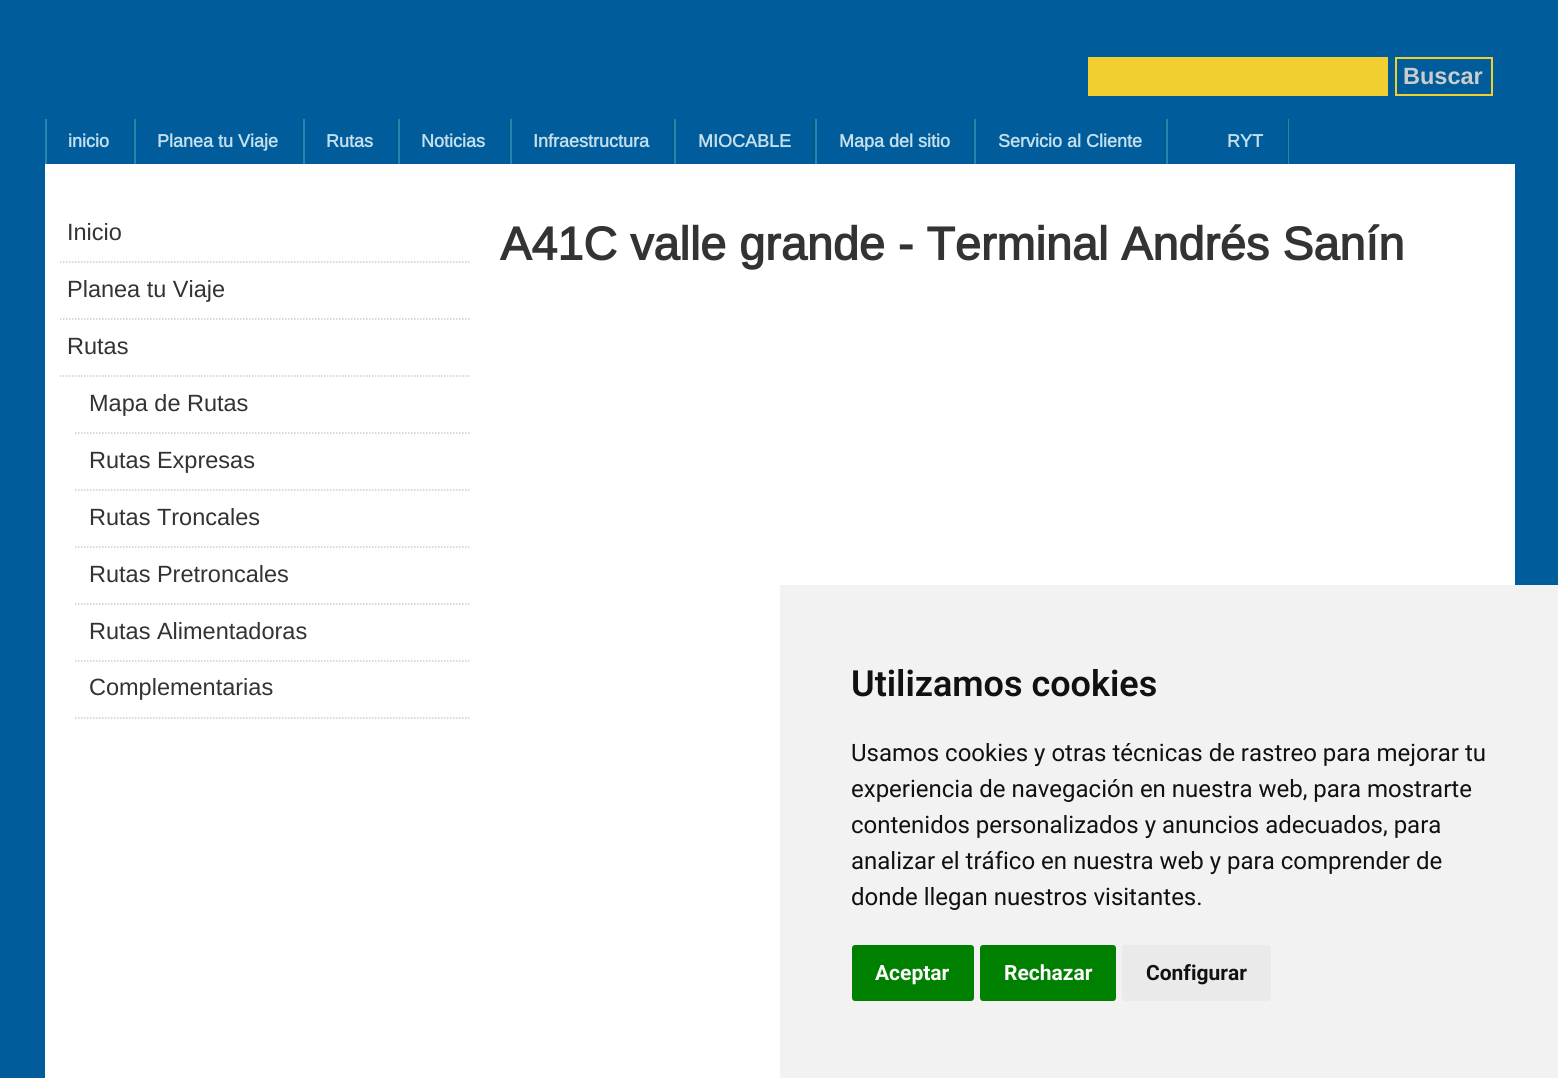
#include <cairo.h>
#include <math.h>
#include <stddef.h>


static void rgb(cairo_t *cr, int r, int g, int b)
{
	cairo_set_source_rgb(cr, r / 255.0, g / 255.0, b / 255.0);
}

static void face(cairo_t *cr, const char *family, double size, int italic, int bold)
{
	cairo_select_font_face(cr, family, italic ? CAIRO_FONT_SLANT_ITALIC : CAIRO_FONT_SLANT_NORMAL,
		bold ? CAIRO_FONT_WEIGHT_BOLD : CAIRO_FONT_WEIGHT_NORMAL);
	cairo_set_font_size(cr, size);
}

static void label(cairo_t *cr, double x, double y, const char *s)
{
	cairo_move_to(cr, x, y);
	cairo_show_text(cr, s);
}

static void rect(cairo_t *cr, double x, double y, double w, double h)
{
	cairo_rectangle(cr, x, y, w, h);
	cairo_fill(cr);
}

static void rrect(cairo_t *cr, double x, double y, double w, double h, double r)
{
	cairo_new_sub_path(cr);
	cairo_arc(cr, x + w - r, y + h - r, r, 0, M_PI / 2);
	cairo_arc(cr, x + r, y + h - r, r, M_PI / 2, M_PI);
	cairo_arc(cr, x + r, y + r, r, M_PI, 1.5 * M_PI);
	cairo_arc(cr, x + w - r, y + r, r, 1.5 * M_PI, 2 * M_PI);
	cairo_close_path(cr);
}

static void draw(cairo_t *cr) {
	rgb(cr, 0, 92, 154);
	cairo_paint(cr);
	rgb(cr, 241, 207, 48);
	rect(cr, 1088, 57, 300, 39);
	cairo_rectangle(cr, 1396, 58, 96, 37);
	cairo_stroke(cr);
	face(cr, "Liberation Sans", 23.5, 0, 1);
	rgb(cr, 204, 204, 204);
	label(cr, 1403, 84, "Buscar");
	rgb(cr, 42, 132, 177);
	rect(cr, 1288, 119, 1, 45);
	rgb(cr, 0, 90, 135);
	rect(cr, 132, 119, 2, 45);
	rgb(cr, 42, 132, 177);
	rect(cr, 45, 119, 2, 45);
	face(cr, "Arimo", 18, 0, 1);
	rgb(cr, 195, 223, 237);
	label(cr, 68, 147, "inicio");
	rgb(cr, 0, 90, 135);
	rect(cr, 302, 119, 1, 45);
	rgb(cr, 42, 132, 177);
	rect(cr, 134, 119, 2, 45);
	rgb(cr, 195, 223, 237);
	label(cr, 157, 147, "Planea tu Viaje");
	rgb(cr, 0, 90, 135);
	rect(cr, 396, 119, 2, 45);
	rgb(cr, 42, 132, 177);
	rect(cr, 303, 119, 2, 45);
	rgb(cr, 195, 223, 237);
	label(cr, 326, 147, "Rutas");
	rgb(cr, 0, 90, 135);
	rect(cr, 509, 119, 1, 45);
	rgb(cr, 42, 132, 177);
	rect(cr, 398, 119, 2, 45);
	rgb(cr, 195, 223, 237);
	label(cr, 421, 147, "Noticias");
	rgb(cr, 0, 90, 135);
	rect(cr, 672, 119, 2, 45);
	rgb(cr, 42, 132, 177);
	rect(cr, 510, 119, 2, 45);
	rgb(cr, 195, 223, 237);
	label(cr, 533, 147, "Infraestructura");
	rgb(cr, 0, 90, 135);
	rect(cr, 813, 119, 2, 45);
	rgb(cr, 42, 132, 177);
	rect(cr, 674, 119, 2, 45);
	rgb(cr, 195, 223, 237);
	label(cr, 698, 147, "MIOCABLE");
	rgb(cr, 0, 90, 135);
	rect(cr, 972, 119, 2, 45);
	rgb(cr, 42, 132, 177);
	rect(cr, 815, 119, 2, 45);
	rgb(cr, 195, 223, 237);
	label(cr, 839, 147, "Mapa del sitio");
	rgb(cr, 0, 90, 135);
	rect(cr, 1164, 119, 2, 45);
	rgb(cr, 42, 132, 177);
	rect(cr, 974, 119, 2, 45);
	rgb(cr, 195, 223, 237);
	label(cr, 998, 147, "Servicio al Cliente");
	rgb(cr, 0, 90, 135);
	rect(cr, 1286, 119, 2, 45);
	rgb(cr, 42, 132, 177);
	rect(cr, 1166, 119, 2, 45);
	rgb(cr, 195, 223, 237);
	label(cr, 1227, 147, "RYT");
	rgb(cr, 255, 255, 255);
	rect(cr, 45, 164, 1470, 914);
	cairo_new_path(cr);
	cairo_move_to(cr, 60, 262);
	cairo_line_to(cr, 471, 262);
	rgb(cr, 204, 204, 204);
	cairo_set_line_width(cr, 1.5);
	cairo_set_dash(cr, (double[]){1.5, 1.5}, 2, 0);
	cairo_stroke(cr);
	face(cr, "Arimo", 23.5, 0, 0);
	rgb(cr, 51, 51, 51);
	label(cr, 67, 240, "Inicio");
	cairo_new_path(cr);
	cairo_move_to(cr, 60, 319);
	cairo_line_to(cr, 471, 319);
	rgb(cr, 204, 204, 204);
	cairo_stroke(cr);
	rgb(cr, 51, 51, 51);
	label(cr, 67, 297, "Planea tu Viaje");
	cairo_new_path(cr);
	cairo_move_to(cr, 60, 376);
	cairo_line_to(cr, 471, 376);
	rgb(cr, 204, 204, 204);
	cairo_stroke(cr);
	rgb(cr, 51, 51, 51);
	label(cr, 67, 354, "Rutas");
	cairo_new_path(cr);
	cairo_move_to(cr, 75, 433);
	cairo_line_to(cr, 471, 433);
	rgb(cr, 204, 204, 204);
	cairo_stroke(cr);
	rgb(cr, 51, 51, 51);
	label(cr, 89, 411, "Mapa de Rutas");
	cairo_new_path(cr);
	cairo_move_to(cr, 75, 490);
	cairo_line_to(cr, 471, 490);
	rgb(cr, 204, 204, 204);
	cairo_stroke(cr);
	rgb(cr, 51, 51, 51);
	label(cr, 89, 468, "Rutas Expresas");
	cairo_new_path(cr);
	cairo_move_to(cr, 75, 547);
	cairo_line_to(cr, 471, 547);
	rgb(cr, 204, 204, 204);
	cairo_stroke(cr);
	rgb(cr, 51, 51, 51);
	label(cr, 89, 525, "Rutas Troncales");
	cairo_new_path(cr);
	cairo_move_to(cr, 75, 604);
	cairo_line_to(cr, 471, 604);
	rgb(cr, 204, 204, 204);
	cairo_stroke(cr);
	rgb(cr, 51, 51, 51);
	label(cr, 89, 582, "Rutas Pretroncales");
	cairo_new_path(cr);
	cairo_move_to(cr, 75, 661);
	cairo_line_to(cr, 471, 661);
	rgb(cr, 204, 204, 204);
	cairo_stroke(cr);
	rgb(cr, 51, 51, 51);
	label(cr, 89, 639, "Rutas Alimentadoras");
	cairo_new_path(cr);
	cairo_move_to(cr, 75, 718);
	cairo_line_to(cr, 471, 718);
	rgb(cr, 204, 204, 204);
	cairo_stroke(cr);
	rgb(cr, 51, 51, 51);
	label(cr, 89, 695, "Complementarias");
	face(cr, "Arimo", 46.75, 0, 1);
	label(cr, 500, 260, "A41C valle grande - Terminal Andrés Sanín");
	rgb(cr, 242, 242, 242);
	rect(cr, 780, 585, 778, 493);
	face(cr, "Roboto SemiBold", 36, 0, 0);
	rgb(cr, 17, 17, 17);
	label(cr, 851, 696, "Utilizamos cookies");
	face(cr, "Roboto", 24, 0, 0);
	label(cr, 851, 761, "Usamos cookies y otras técnicas de rastreo para mejorar tu");
	label(cr, 851, 797, "experiencia de navegación en nuestra web, para mostrarte");
	label(cr, 851, 833, "contenidos personalizados y anuncios adecuados, para");
	label(cr, 851, 869, "analizar el tráfico en nuestra web y para comprender de");
	label(cr, 851, 905, "donde llegan nuestros visitantes.");
	rgb(cr, 0, 128, 0);
	rrect(cr, 852, 945, 122, 56, 3);
	cairo_fill(cr);
	face(cr, "Roboto", 21, 0, 1);
	rgb(cr, 255, 255, 255);
	label(cr, 875, 980, "Aceptar");
	rgb(cr, 0, 128, 0);
	rrect(cr, 980, 945, 136, 56, 3);
	cairo_fill(cr);
	rgb(cr, 255, 255, 255);
	label(cr, 1004, 980, "Rechazar");
	rgb(cr, 234, 234, 234);
	rrect(cr, 1122, 945, 149, 56, 3);
	cairo_fill(cr);
	rgb(cr, 17, 17, 17);
	label(cr, 1146, 980, "Configurar");
}

int main(void) {
	cairo_surface_t *surface = cairo_image_surface_create(CAIRO_FORMAT_RGB24, 1558, 1078);
	cairo_t *cr = cairo_create(surface);
	cairo_font_options_t *options = cairo_font_options_create();
	cairo_font_options_set_hint_metrics(options, CAIRO_HINT_METRICS_OFF);
	cairo_font_options_set_hint_style(options, CAIRO_HINT_STYLE_NONE);
	cairo_set_font_options(cr, options);
	cairo_set_miter_limit(cr, 4);
	draw(cr);
	cairo_surface_write_to_png(surface, "render.png");
	cairo_font_options_destroy(options);
	cairo_destroy(cr);
	cairo_surface_destroy(surface);
	return 0;
}
